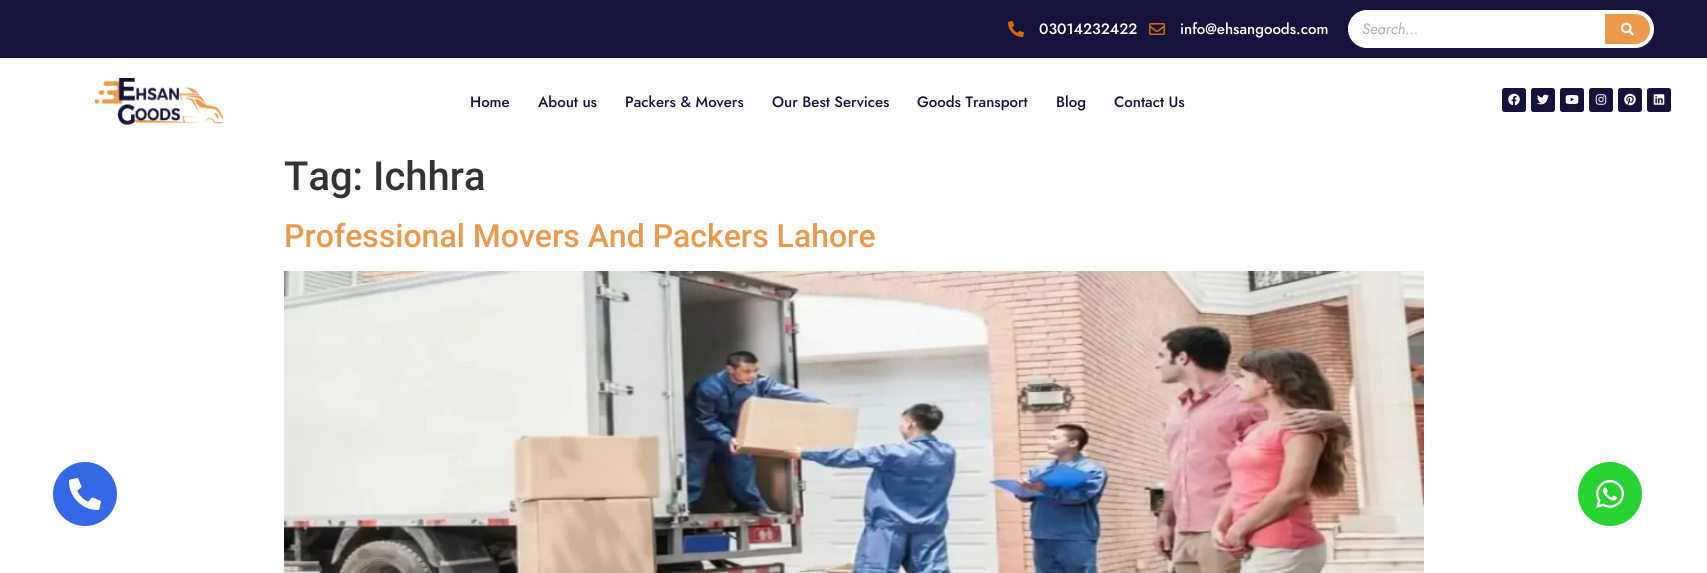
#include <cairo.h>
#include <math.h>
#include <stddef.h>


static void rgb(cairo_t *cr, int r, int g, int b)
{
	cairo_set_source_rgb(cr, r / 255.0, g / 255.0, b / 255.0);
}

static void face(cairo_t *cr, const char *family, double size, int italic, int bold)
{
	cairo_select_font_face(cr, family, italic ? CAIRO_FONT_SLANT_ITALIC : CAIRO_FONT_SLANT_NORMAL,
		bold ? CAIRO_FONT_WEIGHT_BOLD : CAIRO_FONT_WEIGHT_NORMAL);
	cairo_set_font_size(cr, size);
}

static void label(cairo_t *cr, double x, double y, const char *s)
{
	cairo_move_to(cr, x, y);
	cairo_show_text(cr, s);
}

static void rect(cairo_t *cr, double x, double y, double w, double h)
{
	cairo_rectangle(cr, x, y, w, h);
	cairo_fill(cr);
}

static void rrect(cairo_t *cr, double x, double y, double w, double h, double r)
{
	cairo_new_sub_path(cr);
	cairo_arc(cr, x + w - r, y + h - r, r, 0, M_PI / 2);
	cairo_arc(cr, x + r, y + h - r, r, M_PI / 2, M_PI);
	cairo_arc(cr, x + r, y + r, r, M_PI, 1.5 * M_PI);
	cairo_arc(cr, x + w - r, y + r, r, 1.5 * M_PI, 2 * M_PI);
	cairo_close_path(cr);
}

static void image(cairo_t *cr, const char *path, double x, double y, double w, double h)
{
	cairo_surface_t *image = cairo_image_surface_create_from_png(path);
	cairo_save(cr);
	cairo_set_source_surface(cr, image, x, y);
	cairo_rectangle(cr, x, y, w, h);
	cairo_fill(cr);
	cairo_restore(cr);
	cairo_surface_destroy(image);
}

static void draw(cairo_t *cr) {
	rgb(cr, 255, 255, 255);
	cairo_paint(cr);
	rgb(cr, 21, 19, 60);
	rect(cr, 0, 0, 1707, 58);
	image(cr, "image0.png", 1008, 21, 16, 16);
	face(cr, "Jost Medium", 15, 0, 0);
	rgb(cr, 255, 255, 255);
	label(cr, 1039, 34, "03014232422");
	image(cr, "image1.png", 1149, 23, 16, 12);
	label(cr, 1180, 34, "info@ehsangoods.com");
	rrect(cr, 1348.5, 10.5, 305, 37, 18.5);
	cairo_fill_preserve(cr);
	cairo_set_line_width(cr, 1);
	cairo_stroke(cr);
	face(cr, "Jost", 15, 1, 0);
	rgb(cr, 175, 175, 175);
	label(cr, 1362, 34, "Search...");
	rgb(cr, 236, 153, 75);
	cairo_new_path(cr);
	cairo_move_to(cr, 1605, 14);
	cairo_line_to(cr, 1635, 14);
	cairo_curve_to(cr, 1643.5, 14, 1650, 20.5, 1650, 29);
	cairo_curve_to(cr, 1650, 37.5, 1643.5, 44, 1635, 44);
	cairo_line_to(cr, 1605, 44);
	cairo_close_path(cr);
	cairo_fill(cr);
	image(cr, "image2.png", 1621, 22, 13, 14);
	image(cr, "image3.png", 94, 78, 129, 47);
	face(cr, "Jost Medium", 15, 0, 0);
	rgb(cr, 21, 19, 60);
	label(cr, 470, 107, "Home");
	label(cr, 538, 107, "About us");
	label(cr, 625, 107, "Packers & Movers");
	label(cr, 772, 107, "Our Best Services");
	label(cr, 917, 107, "Goods Transport");
	label(cr, 1056, 107, "Blog");
	label(cr, 1114, 107, "Contact Us");
	rrect(cr, 1502, 88, 24, 24, 2.5);
	cairo_fill(cr);
	image(cr, "image4.png", 1508, 93, 12, 13);
	rrect(cr, 1531, 88, 24, 24, 2.5);
	cairo_fill(cr);
	image(cr, "image5.png", 1537, 94, 12, 11);
	rrect(cr, 1560, 88, 24, 24, 2.5);
	cairo_fill(cr);
	image(cr, "image6.png", 1565, 95, 14, 9);
	rrect(cr, 1589, 88, 24, 24, 2.5);
	cairo_fill(cr);
	image(cr, "image7.png", 1595, 94, 12, 11);
	rrect(cr, 1618, 88, 24, 24, 2.5);
	cairo_fill(cr);
	image(cr, "image8.png", 1624, 93, 12, 13);
	rrect(cr, 1647, 88, 24, 24, 2.5);
	cairo_fill(cr);
	image(cr, "image9.png", 1653, 94, 12, 11);
	face(cr, "Roboto Medium", 40, 0, 0);
	rgb(cr, 51, 51, 51);
	label(cr, 284, 190, "Tag: Ichhra");
	face(cr, "Roboto Medium", 32, 0, 0);
	rgb(cr, 236, 153, 75);
	label(cr, 284, 247, "Professional Movers And Packers Lahore");
	image(cr, "image10.png", 284, 271, 1140, 302);
	rgb(cr, 53, 104, 228);
	cairo_arc(cr, 85, 494, 32, 0, 2 * M_PI);
	cairo_fill(cr);
	image(cr, "image11.png", 69, 478, 32, 32);
	rgb(cr, 40, 210, 51);
	cairo_arc(cr, 1610, 494, 32, 0, 2 * M_PI);
	cairo_fill(cr);
	image(cr, "image12.png", 1596, 480, 28, 28);
}

int main(void) {
	cairo_surface_t *surface = cairo_image_surface_create(CAIRO_FORMAT_RGB24, 1707, 573);
	cairo_t *cr = cairo_create(surface);
	cairo_font_options_t *options = cairo_font_options_create();
	cairo_font_options_set_hint_metrics(options, CAIRO_HINT_METRICS_OFF);
	cairo_font_options_set_hint_style(options, CAIRO_HINT_STYLE_NONE);
	cairo_set_font_options(cr, options);
	cairo_set_miter_limit(cr, 4);
	draw(cr);
	cairo_surface_write_to_png(surface, "render.png");
	cairo_font_options_destroy(options);
	cairo_destroy(cr);
	cairo_surface_destroy(surface);
	return 0;
}
